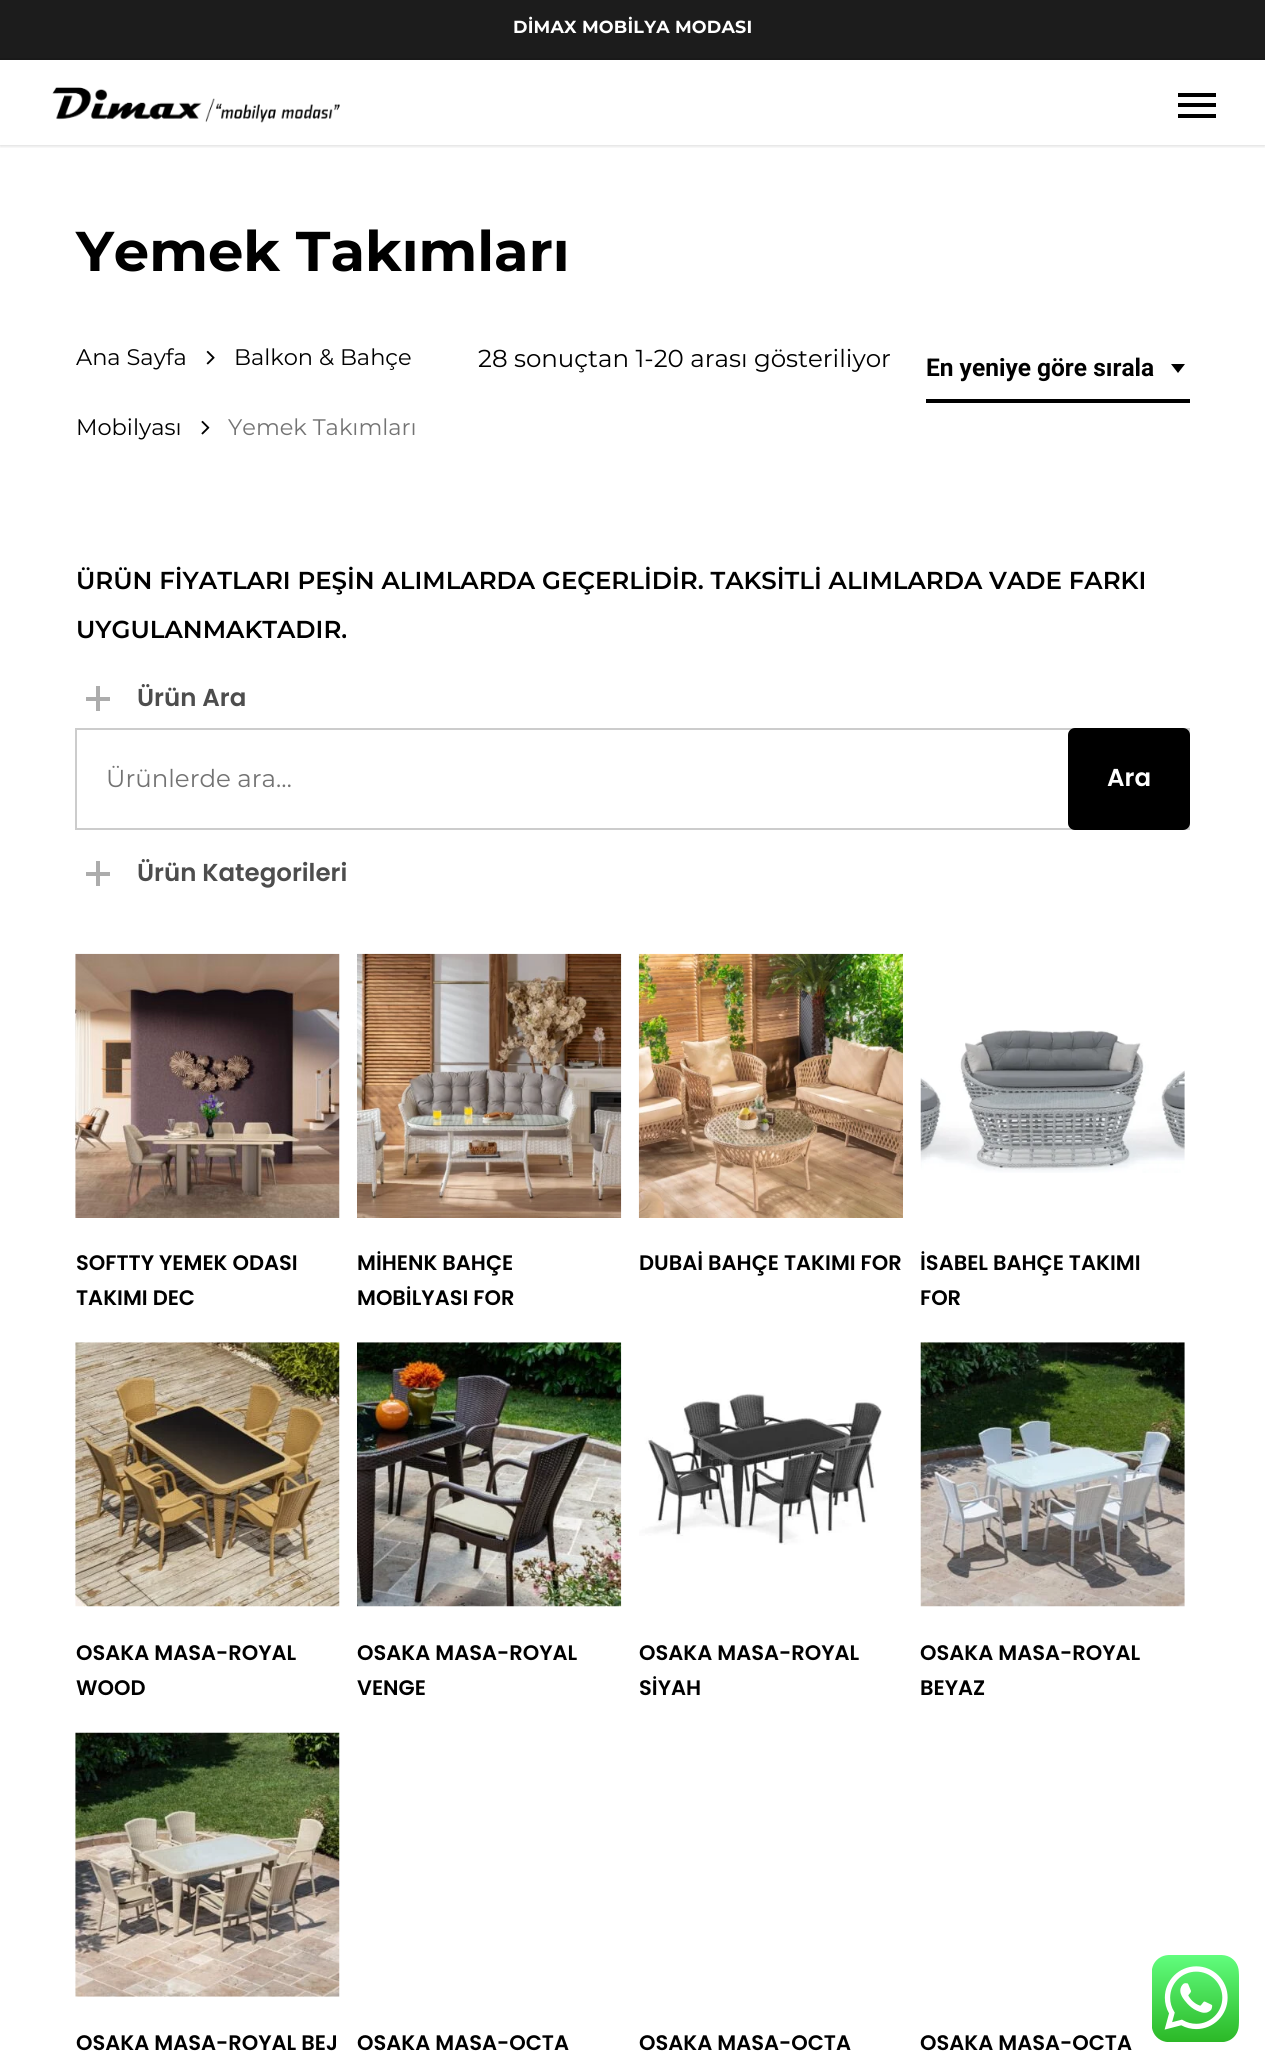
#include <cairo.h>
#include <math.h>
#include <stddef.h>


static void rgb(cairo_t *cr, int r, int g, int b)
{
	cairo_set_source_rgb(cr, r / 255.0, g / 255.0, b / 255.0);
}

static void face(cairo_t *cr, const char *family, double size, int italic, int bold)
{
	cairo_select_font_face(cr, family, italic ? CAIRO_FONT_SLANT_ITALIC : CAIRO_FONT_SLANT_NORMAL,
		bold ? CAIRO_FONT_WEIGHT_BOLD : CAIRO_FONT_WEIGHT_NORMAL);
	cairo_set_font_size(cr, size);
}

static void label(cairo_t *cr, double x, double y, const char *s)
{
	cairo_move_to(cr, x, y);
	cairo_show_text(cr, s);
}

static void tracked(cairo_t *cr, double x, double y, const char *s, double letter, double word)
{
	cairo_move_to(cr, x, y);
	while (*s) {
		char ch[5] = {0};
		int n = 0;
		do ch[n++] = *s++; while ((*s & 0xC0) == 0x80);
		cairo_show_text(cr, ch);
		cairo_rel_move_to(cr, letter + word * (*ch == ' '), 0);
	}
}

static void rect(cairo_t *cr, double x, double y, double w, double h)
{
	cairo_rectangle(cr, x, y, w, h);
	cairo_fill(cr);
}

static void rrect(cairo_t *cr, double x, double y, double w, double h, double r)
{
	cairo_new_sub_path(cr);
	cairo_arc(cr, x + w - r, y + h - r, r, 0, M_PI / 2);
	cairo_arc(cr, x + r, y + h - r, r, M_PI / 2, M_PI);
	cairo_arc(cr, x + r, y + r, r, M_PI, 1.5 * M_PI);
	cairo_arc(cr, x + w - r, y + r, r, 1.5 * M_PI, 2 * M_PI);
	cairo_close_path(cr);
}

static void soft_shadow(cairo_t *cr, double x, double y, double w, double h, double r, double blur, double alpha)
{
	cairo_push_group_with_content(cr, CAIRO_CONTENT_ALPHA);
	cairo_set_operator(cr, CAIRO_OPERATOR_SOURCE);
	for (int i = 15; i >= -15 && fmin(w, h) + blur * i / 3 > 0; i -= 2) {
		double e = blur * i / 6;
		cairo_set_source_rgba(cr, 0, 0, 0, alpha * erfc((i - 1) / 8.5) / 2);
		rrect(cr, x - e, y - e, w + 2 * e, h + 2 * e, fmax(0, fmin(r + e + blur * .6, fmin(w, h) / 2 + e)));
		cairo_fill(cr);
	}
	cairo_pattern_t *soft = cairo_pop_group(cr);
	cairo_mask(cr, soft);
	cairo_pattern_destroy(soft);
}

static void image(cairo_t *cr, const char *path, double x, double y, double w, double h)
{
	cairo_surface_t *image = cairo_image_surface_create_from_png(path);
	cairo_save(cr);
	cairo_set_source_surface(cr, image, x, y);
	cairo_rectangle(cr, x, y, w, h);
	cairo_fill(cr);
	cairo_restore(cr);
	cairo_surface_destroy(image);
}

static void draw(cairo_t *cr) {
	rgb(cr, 255, 255, 255);
	cairo_paint(cr);
	cairo_save(cr);
	cairo_rectangle(cr, 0, 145, 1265, 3);
	cairo_clip(cr);
	rgb(cr, 0, 0, 0);
	soft_shadow(cr, 0, 0, 1265, 145, 0, 2.5, 0.22);
	cairo_restore(cr);
	rgb(cr, 28, 28, 28);
	rect(cr, 0, 0, 1265, 58);
	rgb(cr, 25, 25, 25);
	rect(cr, 0, 58, 1265, 2);
	face(cr, "Montserrat", 17.5, 0, 1);
	rgb(cr, 255, 255, 255);
	tracked(cr, 513, 33, "DİMAX MOBİLYA MODASI", 0.2, 0);
	image(cr, "image0.png", 52, 87, 288, 36);
	rgb(cr, 0, 0, 0);
	rect(cr, 1178, 93, 38, 4);
	rect(cr, 1178, 114, 38, 4);
	rect(cr, 1178, 103, 38, 4);
	face(cr, "Montserrat", 56, 0, 1);
	label(cr, 76, 271, "Yemek Takımları");
	face(cr, "Montserrat", 22.5, 0, 0);
	label(cr, 76, 365, "Ana Sayfa");
	image(cr, "image1.png", 206, 350, 9, 15);
	label(cr, 234, 365, "Balkon & Bahçe");
	label(cr, 76, 435, "Mobilyası");
	image(cr, "image2.png", 201, 420, 9, 15);
	rgb(cr, 115, 115, 115);
	label(cr, 228, 435, "Yemek Takımları");
	face(cr, "Montserrat", 24.5, 0, 0);
	rgb(cr, 0, 0, 0);
	label(cr, 478, 367, "28 sonuçtan 1-20 arası gösteriliyor");
	rect(cr, 926, 399, 264, 4);
	face(cr, "Roboto", 24.5, 0, 1);
	label(cr, 926, 376, "En yeniye göre sırala");
	cairo_new_path(cr);
	cairo_move_to(cr, 1171, 364);
	cairo_line_to(cr, 1185, 364);
	cairo_line_to(cr, 1178, 373);
	cairo_close_path(cr);
	cairo_fill(cr);
	face(cr, "Montserrat SemiBold", 24.5, 0, 0);
	label(cr, 76, 589, "ÜRÜN FİYATLARI PEŞİN ALIMLARDA GEÇERLİDİR. TAKSİTLİ ALIMLARDA VADE FARKI");
	label(cr, 76, 638, "UYGULANMAKTADIR.");
	rgb(cr, 172, 172, 172);
	rect(cr, 96, 686, 4, 25);
	face(cr, "Poppins SemiBold", 24.5, 0, 0);
	rgb(cr, 77, 77, 77);
	label(cr, 137, 706, "Ürün Ara");
	rgb(cr, 172, 172, 172);
	rect(cr, 86, 697, 24, 4);
	cairo_rectangle(cr, 76, 729, 1113, 100);
	rgb(cr, 204, 204, 204);
	cairo_stroke(cr);
	face(cr, "Montserrat", 24.5, 0, 0);
	rgb(cr, 115, 115, 115);
	label(cr, 106, 787, "Ürünlerde ara…");
	rgb(cr, 0, 0, 0);
	rrect(cr, 1068, 728, 122, 102, 7);
	cairo_fill(cr);
	face(cr, "Poppins SemiBold", 24.5, 0, 0);
	rgb(cr, 255, 255, 255);
	label(cr, 1107, 786, "Ara");
	rgb(cr, 172, 172, 172);
	rect(cr, 96, 861, 4, 25);
	rgb(cr, 77, 77, 77);
	label(cr, 137, 881, "Ürün Kategorileri");
	rgb(cr, 172, 172, 172);
	rect(cr, 86, 872, 24, 4);
	image(cr, "image3.png", 75, 953, 265, 265);
	face(cr, "Poppins SemiBold", 21, 0, 0);
	rgb(cr, 0, 0, 0);
	label(cr, 76, 1270, "SOFTTY YEMEK ODASI");
	label(cr, 76, 1305, "TAKIMI DEC");
	image(cr, "image4.png", 357, 953, 265, 265);
	label(cr, 357, 1270, "MİHENK BAHÇE");
	label(cr, 357, 1305, "MOBİLYASI FOR");
	image(cr, "image5.png", 638, 953, 265, 265);
	label(cr, 639, 1270, "DUBAİ BAHÇE TAKIMI FOR");
	image(cr, "image6.png", 920, 1030, 265, 143);
	label(cr, 920, 1270, "İSABEL BAHÇE TAKIMI");
	label(cr, 920, 1305, "FOR");
	image(cr, "image7.png", 75, 1342, 265, 265);
	label(cr, 76, 1660, "OSAKA MASA-ROYAL");
	label(cr, 76, 1695, "WOOD");
	image(cr, "image8.png", 357, 1342, 265, 265);
	label(cr, 357, 1660, "OSAKA MASA-ROYAL");
	label(cr, 357, 1695, "VENGE");
	image(cr, "image9.png", 639, 1393, 243, 152);
	label(cr, 639, 1660, "OSAKA MASA-ROYAL");
	label(cr, 639, 1695, "SİYAH");
	image(cr, "image10.png", 920, 1342, 265, 265);
	label(cr, 920, 1660, "OSAKA MASA-ROYAL");
	label(cr, 920, 1695, "BEYAZ");
	image(cr, "image11.png", 75, 1732, 265, 265);
	label(cr, 76, 2050, "OSAKA MASA-ROYAL BEJ");
	label(cr, 357, 2050, "OSAKA MASA-OCTA");
	label(cr, 639, 2050, "OSAKA MASA-OCTA");
	label(cr, 920, 2050, "OSAKA MASA-OCTA");
	image(cr, "image12.png", 1152, 1955, 87, 87);
}

int main(void) {
	cairo_surface_t *surface = cairo_image_surface_create(CAIRO_FORMAT_RGB24, 1265, 2067);
	cairo_t *cr = cairo_create(surface);
	cairo_font_options_t *options = cairo_font_options_create();
	cairo_font_options_set_hint_metrics(options, CAIRO_HINT_METRICS_OFF);
	cairo_font_options_set_hint_style(options, CAIRO_HINT_STYLE_NONE);
	cairo_set_font_options(cr, options);
	cairo_set_miter_limit(cr, 4);
	draw(cr);
	cairo_surface_write_to_png(surface, "render.png");
	cairo_font_options_destroy(options);
	cairo_destroy(cr);
	cairo_surface_destroy(surface);
	return 0;
}
